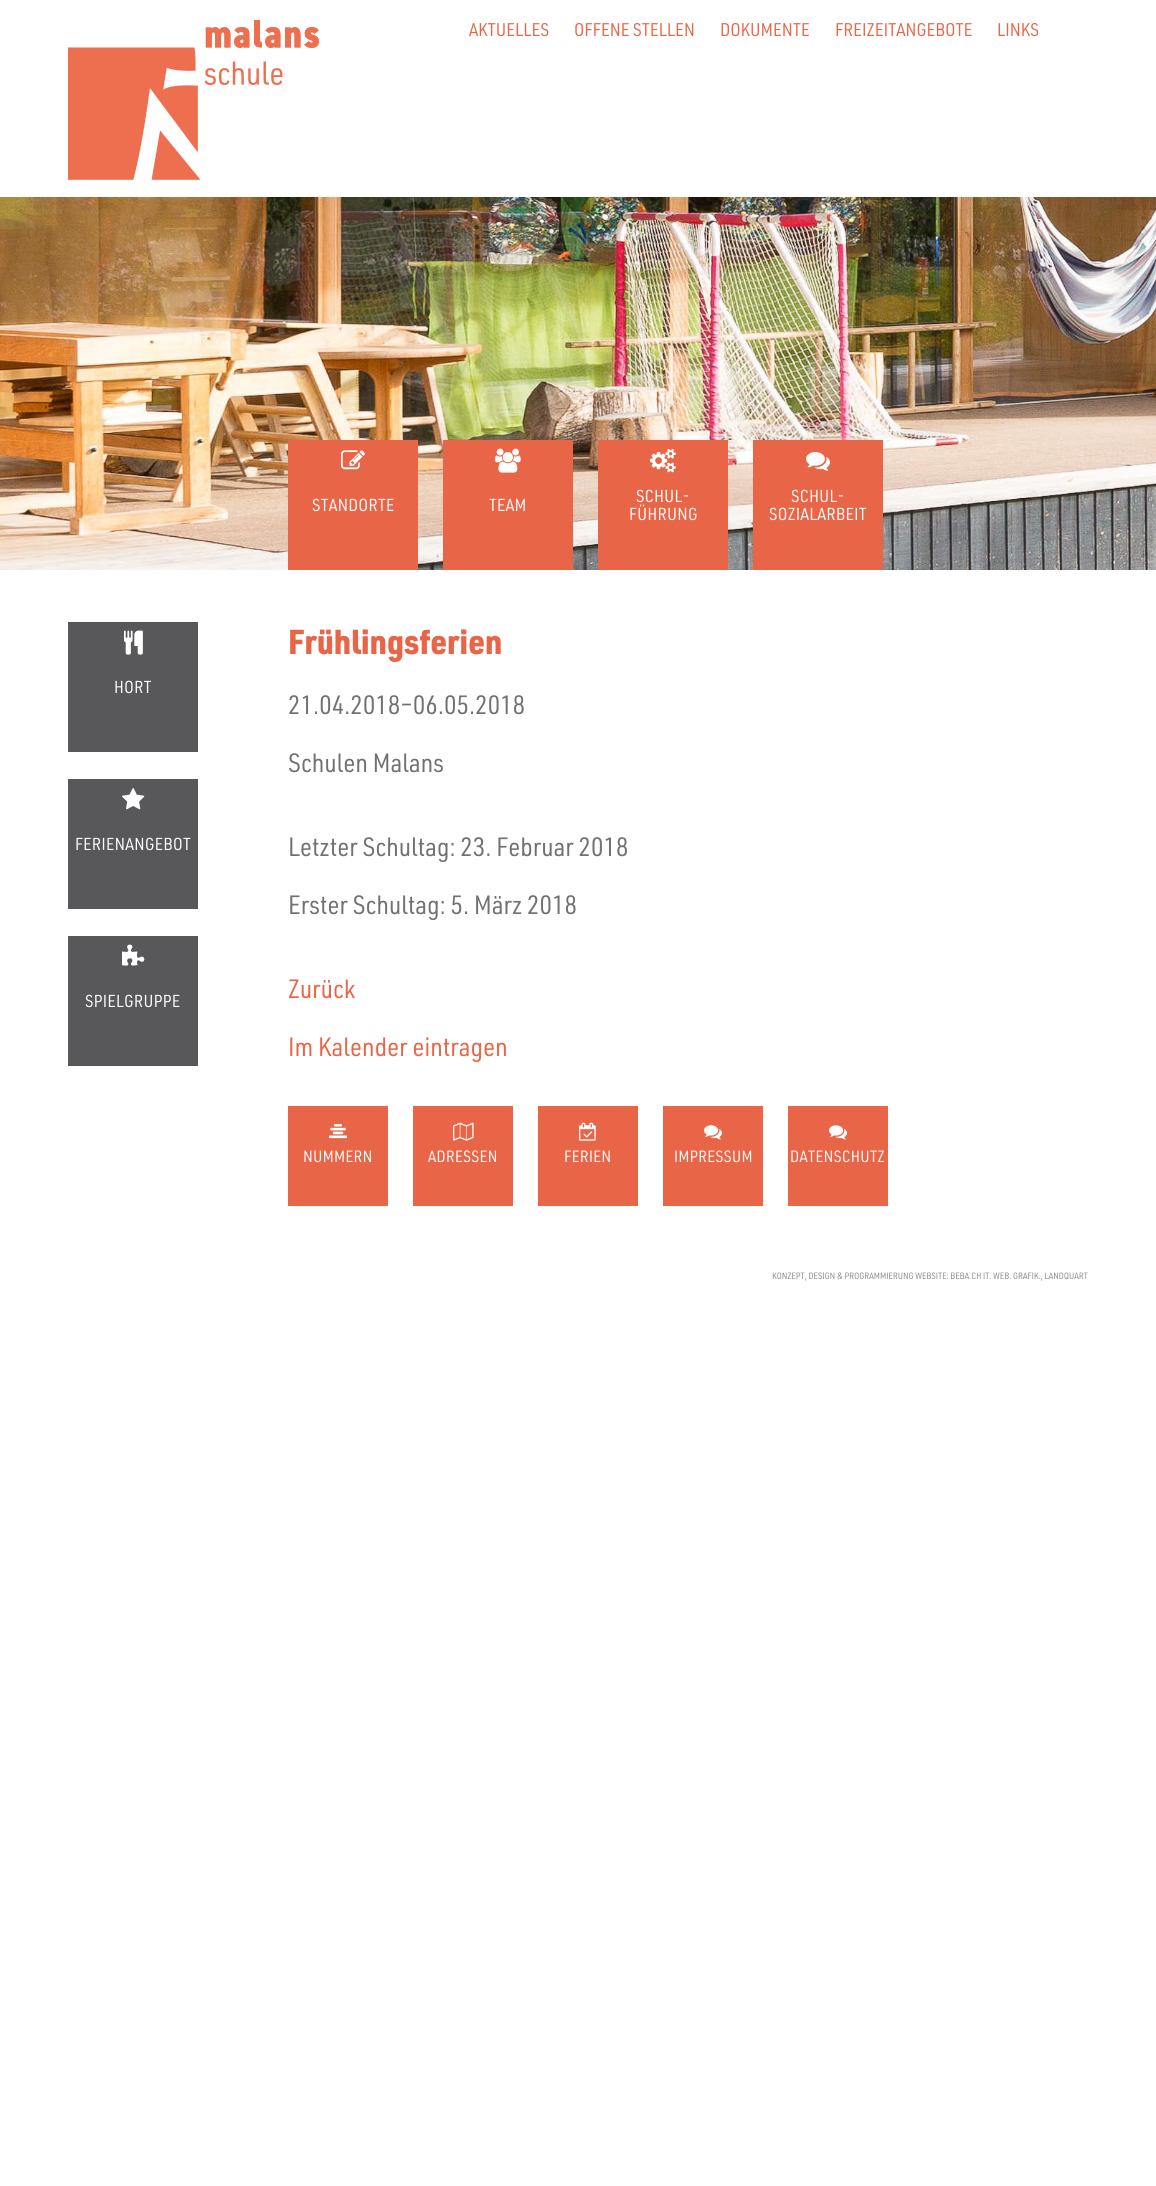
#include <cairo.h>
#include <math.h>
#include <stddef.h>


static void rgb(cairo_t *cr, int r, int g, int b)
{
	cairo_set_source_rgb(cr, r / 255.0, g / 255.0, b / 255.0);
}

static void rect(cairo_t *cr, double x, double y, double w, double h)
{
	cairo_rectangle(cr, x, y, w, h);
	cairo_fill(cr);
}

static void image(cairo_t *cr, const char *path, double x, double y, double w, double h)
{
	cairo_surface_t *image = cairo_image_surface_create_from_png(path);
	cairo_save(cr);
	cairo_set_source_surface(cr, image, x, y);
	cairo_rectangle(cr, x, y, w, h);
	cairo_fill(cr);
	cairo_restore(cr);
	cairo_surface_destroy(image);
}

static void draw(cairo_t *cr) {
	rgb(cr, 255, 255, 255);
	cairo_paint(cr);
	image(cr, "image0.png", 0, 197, 1156, 373);
	image(cr, "image1.png", 68, 20, 251, 160);
	image(cr, "image2.png", 469, 23, 80, 14);
	image(cr, "image3.png", 575, 23, 119, 14);
	image(cr, "image4.png", 721, 23, 88, 14);
	image(cr, "image5.png", 836, 23, 136, 14);
	image(cr, "image6.png", 998, 23, 41, 14);
	rgb(cr, 232, 102, 71);
	rect(cr, 288, 440, 130, 130);
	image(cr, "image7.png", 312, 498, 82, 14);
	image(cr, "image8.png", 341, 450, 24, 20);
	rect(cr, 443, 440, 130, 130);
	image(cr, "image9.png", 489, 498, 36, 13);
	image(cr, "image10.png", 495, 448, 26, 25);
	rect(cr, 598, 440, 130, 130);
	image(cr, "image11.png", 636, 489, 52, 14);
	image(cr, "image12.png", 630, 504, 67, 17);
	image(cr, "image13.png", 650, 448, 26, 25);
	rect(cr, 753, 440, 130, 130);
	image(cr, "image11.png", 791, 489, 52, 14);
	image(cr, "image14.png", 769, 507, 98, 14);
	image(cr, "image15.png", 806, 452, 24, 19);
	rgb(cr, 88, 88, 90);
	rect(cr, 68, 622, 130, 130);
	image(cr, "image16.png", 115, 680, 37, 14);
	image(cr, "image17.png", 124, 630, 19, 25);
	rect(cr, 68, 779, 130, 130);
	image(cr, "image18.png", 76, 837, 115, 14);
	image(cr, "image19.png", 122, 788, 23, 22);
	rect(cr, 68, 936, 130, 130);
	image(cr, "image20.png", 85, 994, 95, 14);
	image(cr, "image21.png", 122, 944, 23, 22);
	image(cr, "image22.png", 290, 629, 211, 33);
	image(cr, "image23.png", 289, 695, 235, 20);
	image(cr, "image24.png", 289, 753, 154, 20);
	image(cr, "image25.png", 290, 837, 337, 26);
	image(cr, "image26.png", 290, 895, 286, 26);
	image(cr, "image27.png", 289, 979, 66, 20);
	image(cr, "image28.png", 290, 1037, 216, 25);
	rgb(cr, 232, 102, 71);
	rect(cr, 288, 1106, 100, 100);
	image(cr, "image29.png", 304, 1150, 67, 13);
	image(cr, "image30.png", 329, 1124, 18, 15);
	rect(cr, 413, 1106, 100, 100);
	image(cr, "image31.png", 428, 1150, 68, 13);
	image(cr, "image32.png", 453, 1122, 21, 19);
	rect(cr, 538, 1106, 100, 100);
	image(cr, "image33.png", 565, 1150, 45, 12);
	image(cr, "image34.png", 579, 1122, 17, 19);
	rect(cr, 663, 1106, 100, 100);
	image(cr, "image35.png", 675, 1150, 77, 13);
	image(cr, "image36.png", 704, 1125, 18, 15);
	rect(cr, 788, 1106, 100, 100);
	image(cr, "image37.png", 791, 1150, 94, 13);
	image(cr, "image36.png", 829, 1125, 18, 15);
	image(cr, "image38.png", 772, 1272, 316, 9);
}

int main(void) {
	cairo_surface_t *surface = cairo_image_surface_create(CAIRO_FORMAT_RGB24, 1156, 2186);
	cairo_t *cr = cairo_create(surface);
	cairo_font_options_t *options = cairo_font_options_create();
	cairo_font_options_set_hint_metrics(options, CAIRO_HINT_METRICS_OFF);
	cairo_font_options_set_hint_style(options, CAIRO_HINT_STYLE_NONE);
	cairo_set_font_options(cr, options);
	cairo_set_miter_limit(cr, 4);
	draw(cr);
	cairo_surface_write_to_png(surface, "render.png");
	cairo_font_options_destroy(options);
	cairo_destroy(cr);
	cairo_surface_destroy(surface);
	return 0;
}
